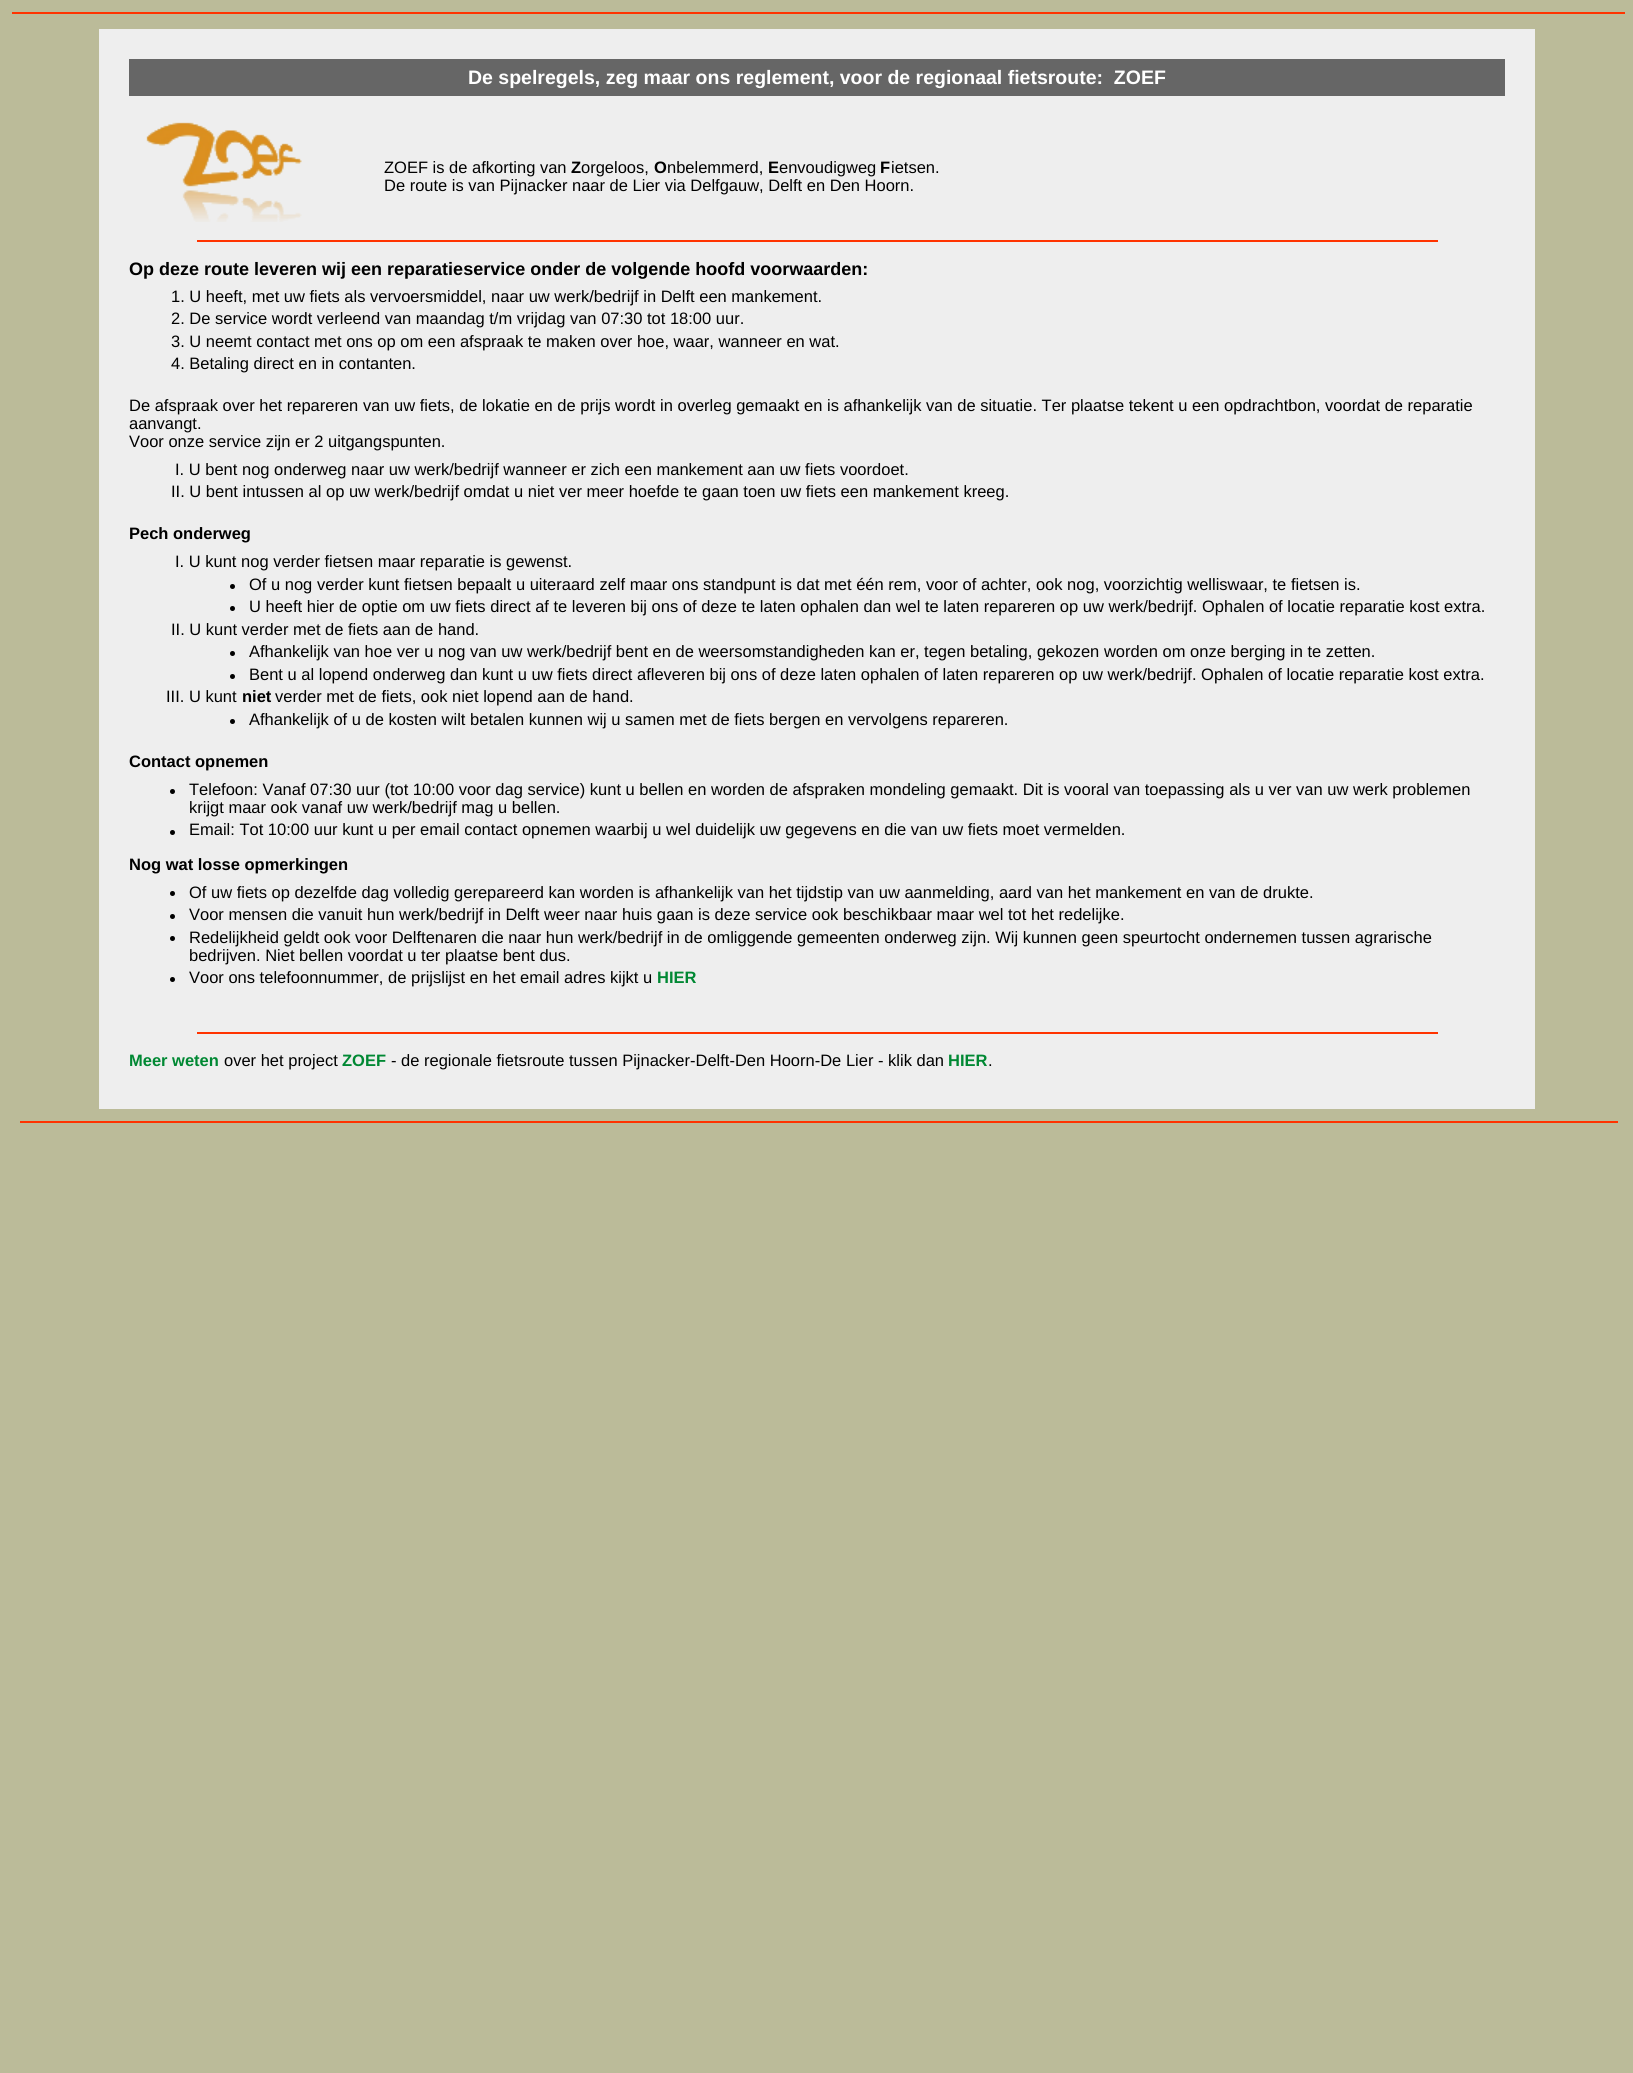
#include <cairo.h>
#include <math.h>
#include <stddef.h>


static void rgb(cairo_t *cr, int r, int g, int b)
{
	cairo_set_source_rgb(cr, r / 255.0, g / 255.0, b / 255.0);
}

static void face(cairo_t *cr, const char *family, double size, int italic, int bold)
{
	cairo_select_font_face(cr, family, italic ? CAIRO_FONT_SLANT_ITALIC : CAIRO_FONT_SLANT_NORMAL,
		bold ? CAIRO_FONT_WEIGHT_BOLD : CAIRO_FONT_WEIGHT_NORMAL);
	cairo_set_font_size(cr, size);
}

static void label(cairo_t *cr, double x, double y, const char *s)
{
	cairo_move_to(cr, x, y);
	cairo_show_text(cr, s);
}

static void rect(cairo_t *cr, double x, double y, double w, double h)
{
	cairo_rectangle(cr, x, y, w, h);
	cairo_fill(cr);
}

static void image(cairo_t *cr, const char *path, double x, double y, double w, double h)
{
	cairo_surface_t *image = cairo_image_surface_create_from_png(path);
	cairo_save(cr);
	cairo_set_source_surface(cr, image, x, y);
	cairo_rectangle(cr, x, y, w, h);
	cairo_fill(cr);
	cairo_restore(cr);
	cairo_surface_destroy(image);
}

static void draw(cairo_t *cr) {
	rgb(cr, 187, 187, 153);
	cairo_paint(cr);
	rgb(cr, 255, 51, 0);
	rect(cr, 12, 12, 1613, 2);
	rgb(cr, 238, 238, 238);
	rect(cr, 99, 29, 1436, 1080);
	rgb(cr, 102, 102, 102);
	rect(cr, 129, 59, 1376, 37);
	face(cr, "Liberation Sans", 19.5, 0, 1);
	rgb(cr, 255, 255, 255);
	label(cr, 468, 84, "De spelregels, zeg maar ons reglement, voor de regionaal fietsroute:  ZOEF");
	image(cr, "image0.png", 146, 122, 156, 65);
	image(cr, "image1.png", 182, 190, 120, 32);
	face(cr, "Liberation Sans", 16.5, 0, 0);
	rgb(cr, 0, 0, 0);
	label(cr, 384, 173, "ZOEF is de afkorting van");
	face(cr, "Liberation Sans", 16.5, 0, 1);
	label(cr, 571, 173, "Z");
	face(cr, "Liberation Sans", 16.5, 0, 0);
	label(cr, 581, 173, "orgeloos,");
	face(cr, "Liberation Sans", 16.5, 0, 1);
	label(cr, 654, 173, "O");
	face(cr, "Liberation Sans", 16.5, 0, 0);
	label(cr, 667, 173, "nbelemmerd,");
	face(cr, "Liberation Sans", 16.5, 0, 1);
	label(cr, 768, 173, "E");
	face(cr, "Liberation Sans", 16.5, 0, 0);
	label(cr, 779, 173, "envoudigweg");
	face(cr, "Liberation Sans", 16.5, 0, 1);
	label(cr, 880, 173, "F");
	face(cr, "Liberation Sans", 16.5, 0, 0);
	label(cr, 891, 173, "ietsen.");
	label(cr, 384, 191, "De route is van Pijnacker naar de Lier via Delfgauw, Delft en Den Hoorn.");
	rgb(cr, 255, 51, 0);
	rect(cr, 197, 240, 1241, 2);
	face(cr, "Liberation Sans", 18, 0, 1);
	rgb(cr, 0, 0, 0);
	label(cr, 129, 275, "Op deze route leveren wij een reparatieservice onder de volgende hoofd voorwaarden:");
	face(cr, "Liberation Sans", 16.5, 0, 0);
	label(cr, 171, 302, "1. U heeft, met uw fiets als vervoersmiddel, naar uw werk/bedrijf in Delft een mankement.");
	label(cr, 171, 324, "2. De service wordt verleend van maandag t/m vrijdag van 07:30 tot 18:00 uur.");
	label(cr, 171, 347, "3. U neemt contact met ons op om een afspraak te maken over hoe, waar, wanneer en wat.");
	label(cr, 171, 369, "4. Betaling direct en in contanten.");
	label(cr, 129, 411, "De afspraak over het repareren van uw fiets, de lokatie en de prijs wordt in overleg gemaakt en is afhankelijk van de situatie. Ter plaatse tekent u een opdrachtbon, voordat de reparatie");
	label(cr, 129, 429, "aanvangt.");
	label(cr, 129, 447, "Voor onze service zijn er 2 uitgangspunten.");
	label(cr, 175, 475, "I. U bent nog onderweg naar uw werk/bedrijf wanneer er zich een mankement aan uw fiets voordoet.");
	label(cr, 171, 497, "II. U bent intussen al op uw werk/bedrijf omdat u niet ver meer hoefde te gaan toen uw fiets een mankement kreeg.");
	face(cr, "Liberation Sans", 16.5, 0, 1);
	label(cr, 129, 539, "Pech onderweg");
	face(cr, "Liberation Sans", 16.5, 0, 0);
	label(cr, 175, 567, "I. U kunt nog verder fietsen maar reparatie is gewenst.");
	cairo_new_path(cr);
	cairo_arc(cr, 232.5, 586.5, 2.5, 0, 2 * M_PI);
	cairo_fill(cr);
	label(cr, 249, 590, "Of u nog verder kunt fietsen bepaalt u uiteraard zelf maar ons standpunt is dat met één rem, voor of achter, ook nog, voorzichtig welliswaar, te fietsen is.");
	cairo_new_path(cr);
	cairo_arc(cr, 232.5, 608.5, 2.5, 0, 2 * M_PI);
	cairo_fill(cr);
	label(cr, 249, 612, "U heeft hier de optie om uw fiets direct af te leveren bij ons of deze te laten ophalen dan wel te laten repareren op uw werk/bedrijf. Ophalen of locatie reparatie kost extra.");
	label(cr, 171, 635, "II. U kunt verder met de fiets aan de hand.");
	cairo_new_path(cr);
	cairo_arc(cr, 232.5, 653.5, 2.5, 0, 2 * M_PI);
	cairo_fill(cr);
	label(cr, 249, 657, "Afhankelijk van hoe ver u nog van uw werk/bedrijf bent en de weersomstandigheden kan er, tegen betaling, gekozen worden om onze berging in te zetten.");
	cairo_new_path(cr);
	cairo_arc(cr, 232.5, 676.5, 2.5, 0, 2 * M_PI);
	cairo_fill(cr);
	label(cr, 249, 680, "Bent u al lopend onderweg dan kunt u uw fiets direct afleveren bij ons of deze laten ophalen of laten repareren op uw werk/bedrijf. Ophalen of locatie reparatie kost extra.");
	label(cr, 166, 702, "III. U kunt");
	face(cr, "Liberation Sans", 16.5, 0, 1);
	label(cr, 242, 702, "niet");
	face(cr, "Liberation Sans", 16.5, 0, 0);
	label(cr, 275, 702, "verder met de fiets, ook niet lopend aan de hand.");
	cairo_new_path(cr);
	cairo_arc(cr, 232.5, 721.5, 2.5, 0, 2 * M_PI);
	cairo_fill(cr);
	label(cr, 249, 725, "Afhankelijk of u de kosten wilt betalen kunnen wij u samen met de fiets bergen en vervolgens repareren.");
	face(cr, "Liberation Sans", 16.5, 0, 1);
	label(cr, 129, 767, "Contact opnemen");
	cairo_new_path(cr);
	cairo_arc(cr, 172.5, 791.5, 2.5, 0, 2 * M_PI);
	cairo_fill(cr);
	face(cr, "Liberation Sans", 16.5, 0, 0);
	label(cr, 189, 795, "Telefoon: Vanaf 07:30 uur (tot 10:00 voor dag service) kunt u bellen en worden de afspraken mondeling gemaakt. Dit is vooral van toepassing als u ver van uw werk problemen");
	label(cr, 189, 813, "krijgt maar ook vanaf uw werk/bedrijf mag u bellen.");
	cairo_new_path(cr);
	cairo_arc(cr, 172.5, 832.5, 2.5, 0, 2 * M_PI);
	cairo_fill(cr);
	label(cr, 189, 835, "Email: Tot 10:00 uur kunt u per email contact opnemen waarbij u wel duidelijk uw gegevens en die van uw fiets moet vermelden.");
	face(cr, "Liberation Sans", 16.5, 0, 1);
	label(cr, 129, 870, "Nog wat losse opmerkingen");
	cairo_new_path(cr);
	cairo_arc(cr, 172.5, 893.5, 2.5, 0, 2 * M_PI);
	cairo_fill(cr);
	face(cr, "Liberation Sans", 16.5, 0, 0);
	label(cr, 189, 898, "Of uw fiets op dezelfde dag volledig gerepareerd kan worden is afhankelijk van het tijdstip van uw aanmelding, aard van het mankement en van de drukte.");
	cairo_new_path(cr);
	cairo_arc(cr, 172.5, 916.5, 2.5, 0, 2 * M_PI);
	cairo_fill(cr);
	label(cr, 189, 920, "Voor mensen die vanuit hun werk/bedrijf in Delft weer naar huis gaan is deze service ook beschikbaar maar wel tot het redelijke.");
	cairo_new_path(cr);
	cairo_arc(cr, 172.5, 938.5, 2.5, 0, 2 * M_PI);
	cairo_fill(cr);
	label(cr, 189, 943, "Redelijkheid geldt ook voor Delftenaren die naar hun werk/bedrijf in de omliggende gemeenten onderweg zijn. Wij kunnen geen speurtocht ondernemen tussen agrarische");
	label(cr, 189, 961, "bedrijven. Niet bellen voordat u ter plaatse bent dus.");
	cairo_new_path(cr);
	cairo_arc(cr, 172.5, 979.5, 2.5, 0, 2 * M_PI);
	cairo_fill(cr);
	label(cr, 189, 983, "Voor ons telefoonnummer, de prijslijst en het email adres kijkt u");
	face(cr, "Liberation Sans", 16.5, 0, 1);
	rgb(cr, 0, 136, 51);
	label(cr, 657, 983, "HIER");
	rgb(cr, 255, 51, 0);
	rect(cr, 197, 1032, 1241, 2);
	rgb(cr, 0, 136, 51);
	label(cr, 129, 1066, "Meer weten");
	face(cr, "Liberation Sans", 16.5, 0, 0);
	rgb(cr, 0, 0, 0);
	label(cr, 224, 1066, "over het project");
	face(cr, "Liberation Sans", 16.5, 0, 1);
	rgb(cr, 0, 136, 51);
	label(cr, 342, 1066, "ZOEF");
	face(cr, "Liberation Sans", 16.5, 0, 0);
	rgb(cr, 0, 0, 0);
	label(cr, 391, 1066, "- de regionale fietsroute tussen Pijnacker-Delft-Den Hoorn-De Lier - klik dan");
	face(cr, "Liberation Sans", 16.5, 0, 1);
	rgb(cr, 0, 136, 51);
	label(cr, 948, 1066, "HIER");
	face(cr, "Liberation Sans", 16.5, 0, 0);
	rgb(cr, 0, 0, 0);
	label(cr, 988, 1066, ".");
	rgb(cr, 255, 51, 0);
	rect(cr, 20, 1121, 1598, 2);
}

int main(void) {
	cairo_surface_t *surface = cairo_image_surface_create(CAIRO_FORMAT_RGB24, 1633, 2073);
	cairo_t *cr = cairo_create(surface);
	cairo_font_options_t *options = cairo_font_options_create();
	cairo_font_options_set_hint_metrics(options, CAIRO_HINT_METRICS_OFF);
	cairo_font_options_set_hint_style(options, CAIRO_HINT_STYLE_NONE);
	cairo_set_font_options(cr, options);
	cairo_set_miter_limit(cr, 4);
	draw(cr);
	cairo_surface_write_to_png(surface, "render.png");
	cairo_font_options_destroy(options);
	cairo_destroy(cr);
	cairo_surface_destroy(surface);
	return 0;
}
